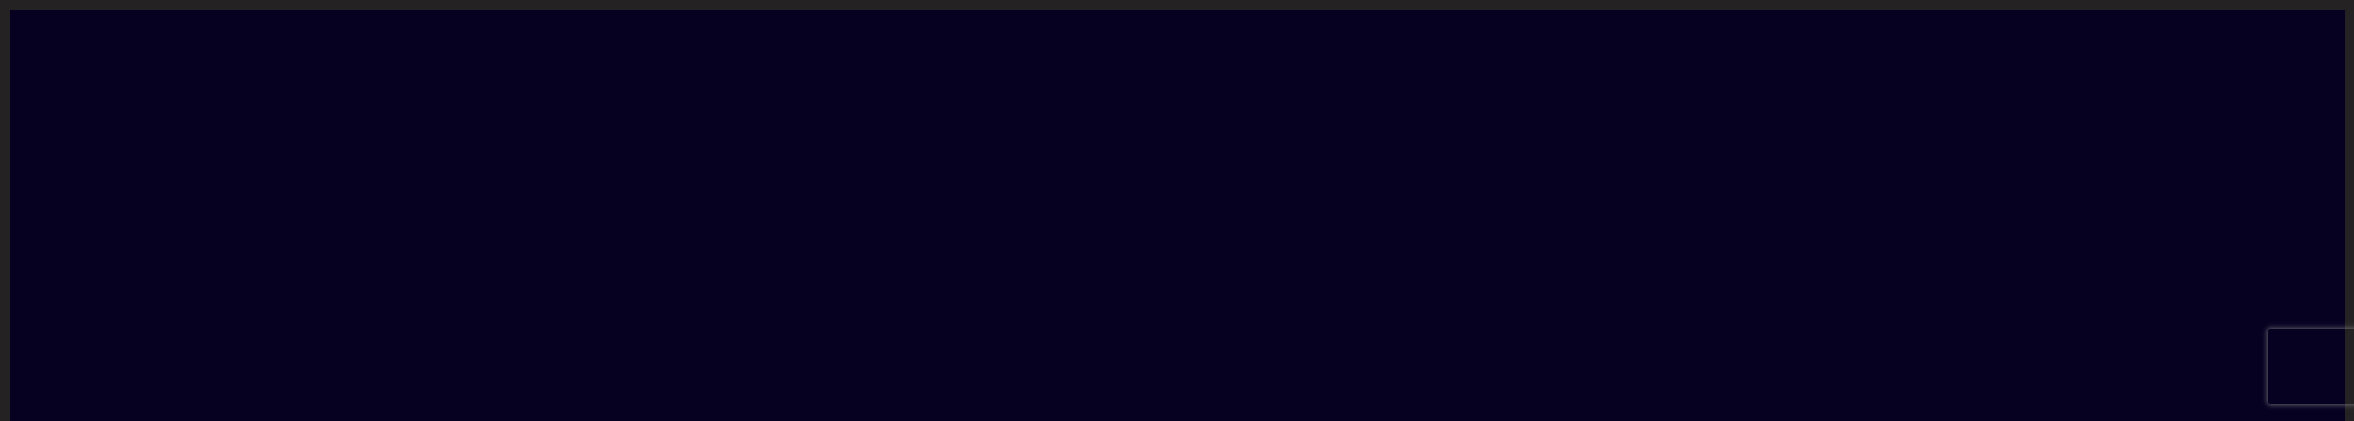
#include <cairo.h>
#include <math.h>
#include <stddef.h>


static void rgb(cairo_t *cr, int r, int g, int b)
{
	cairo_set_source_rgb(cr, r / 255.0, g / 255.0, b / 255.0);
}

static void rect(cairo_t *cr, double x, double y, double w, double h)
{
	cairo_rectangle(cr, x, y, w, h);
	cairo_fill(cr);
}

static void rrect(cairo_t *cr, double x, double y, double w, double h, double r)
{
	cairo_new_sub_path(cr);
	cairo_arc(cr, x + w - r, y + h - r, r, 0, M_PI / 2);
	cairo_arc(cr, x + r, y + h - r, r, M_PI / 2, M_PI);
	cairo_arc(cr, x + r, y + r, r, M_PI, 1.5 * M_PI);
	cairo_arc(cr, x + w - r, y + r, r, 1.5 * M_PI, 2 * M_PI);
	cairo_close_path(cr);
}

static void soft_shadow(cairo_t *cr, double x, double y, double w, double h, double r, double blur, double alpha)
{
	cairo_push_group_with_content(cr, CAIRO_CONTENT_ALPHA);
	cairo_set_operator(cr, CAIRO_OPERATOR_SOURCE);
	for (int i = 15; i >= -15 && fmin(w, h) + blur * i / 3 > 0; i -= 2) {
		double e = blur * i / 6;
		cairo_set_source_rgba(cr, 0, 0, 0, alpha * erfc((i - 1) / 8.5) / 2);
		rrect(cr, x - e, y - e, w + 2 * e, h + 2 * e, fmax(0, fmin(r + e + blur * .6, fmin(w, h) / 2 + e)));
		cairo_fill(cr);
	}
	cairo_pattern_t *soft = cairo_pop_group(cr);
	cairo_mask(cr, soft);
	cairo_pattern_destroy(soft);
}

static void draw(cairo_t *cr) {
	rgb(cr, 37, 34, 36);
	cairo_paint(cr);
	rgb(cr, 6, 0, 33);
	rect(cr, 10, 10, 2335, 411);
	cairo_save(cr);
	cairo_set_fill_rule(cr, CAIRO_FILL_RULE_EVEN_ODD);
	cairo_new_path(cr);
	cairo_move_to(cr, 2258, 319);
	cairo_line_to(cr, 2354, 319);
	cairo_line_to(cr, 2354, 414);
	cairo_line_to(cr, 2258, 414);
	cairo_close_path(cr);
	cairo_move_to(cr, 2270.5, 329);
	cairo_line_to(cr, 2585.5, 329);
	cairo_curve_to(cr, 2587, 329, 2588, 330, 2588, 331.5);
	cairo_line_to(cr, 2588, 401.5);
	cairo_curve_to(cr, 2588, 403, 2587, 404, 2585.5, 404);
	cairo_line_to(cr, 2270.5, 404);
	cairo_curve_to(cr, 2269, 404, 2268, 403, 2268, 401.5);
	cairo_line_to(cr, 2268, 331.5);
	cairo_curve_to(cr, 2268, 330, 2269, 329, 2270.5, 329);
	cairo_close_path(cr);
	cairo_clip(cr);
	rgb(cr, 128, 128, 128);
	soft_shadow(cr, 2268, 329, 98, 75, 2.5, 3, 1);
	cairo_restore(cr);
}

int main(void) {
	cairo_surface_t *surface = cairo_image_surface_create(CAIRO_FORMAT_RGB24, 2354, 421);
	cairo_t *cr = cairo_create(surface);
	cairo_font_options_t *options = cairo_font_options_create();
	cairo_font_options_set_hint_metrics(options, CAIRO_HINT_METRICS_OFF);
	cairo_font_options_set_hint_style(options, CAIRO_HINT_STYLE_NONE);
	cairo_set_font_options(cr, options);
	cairo_set_miter_limit(cr, 4);
	draw(cr);
	cairo_surface_write_to_png(surface, "render.png");
	cairo_font_options_destroy(options);
	cairo_destroy(cr);
	cairo_surface_destroy(surface);
	return 0;
}
